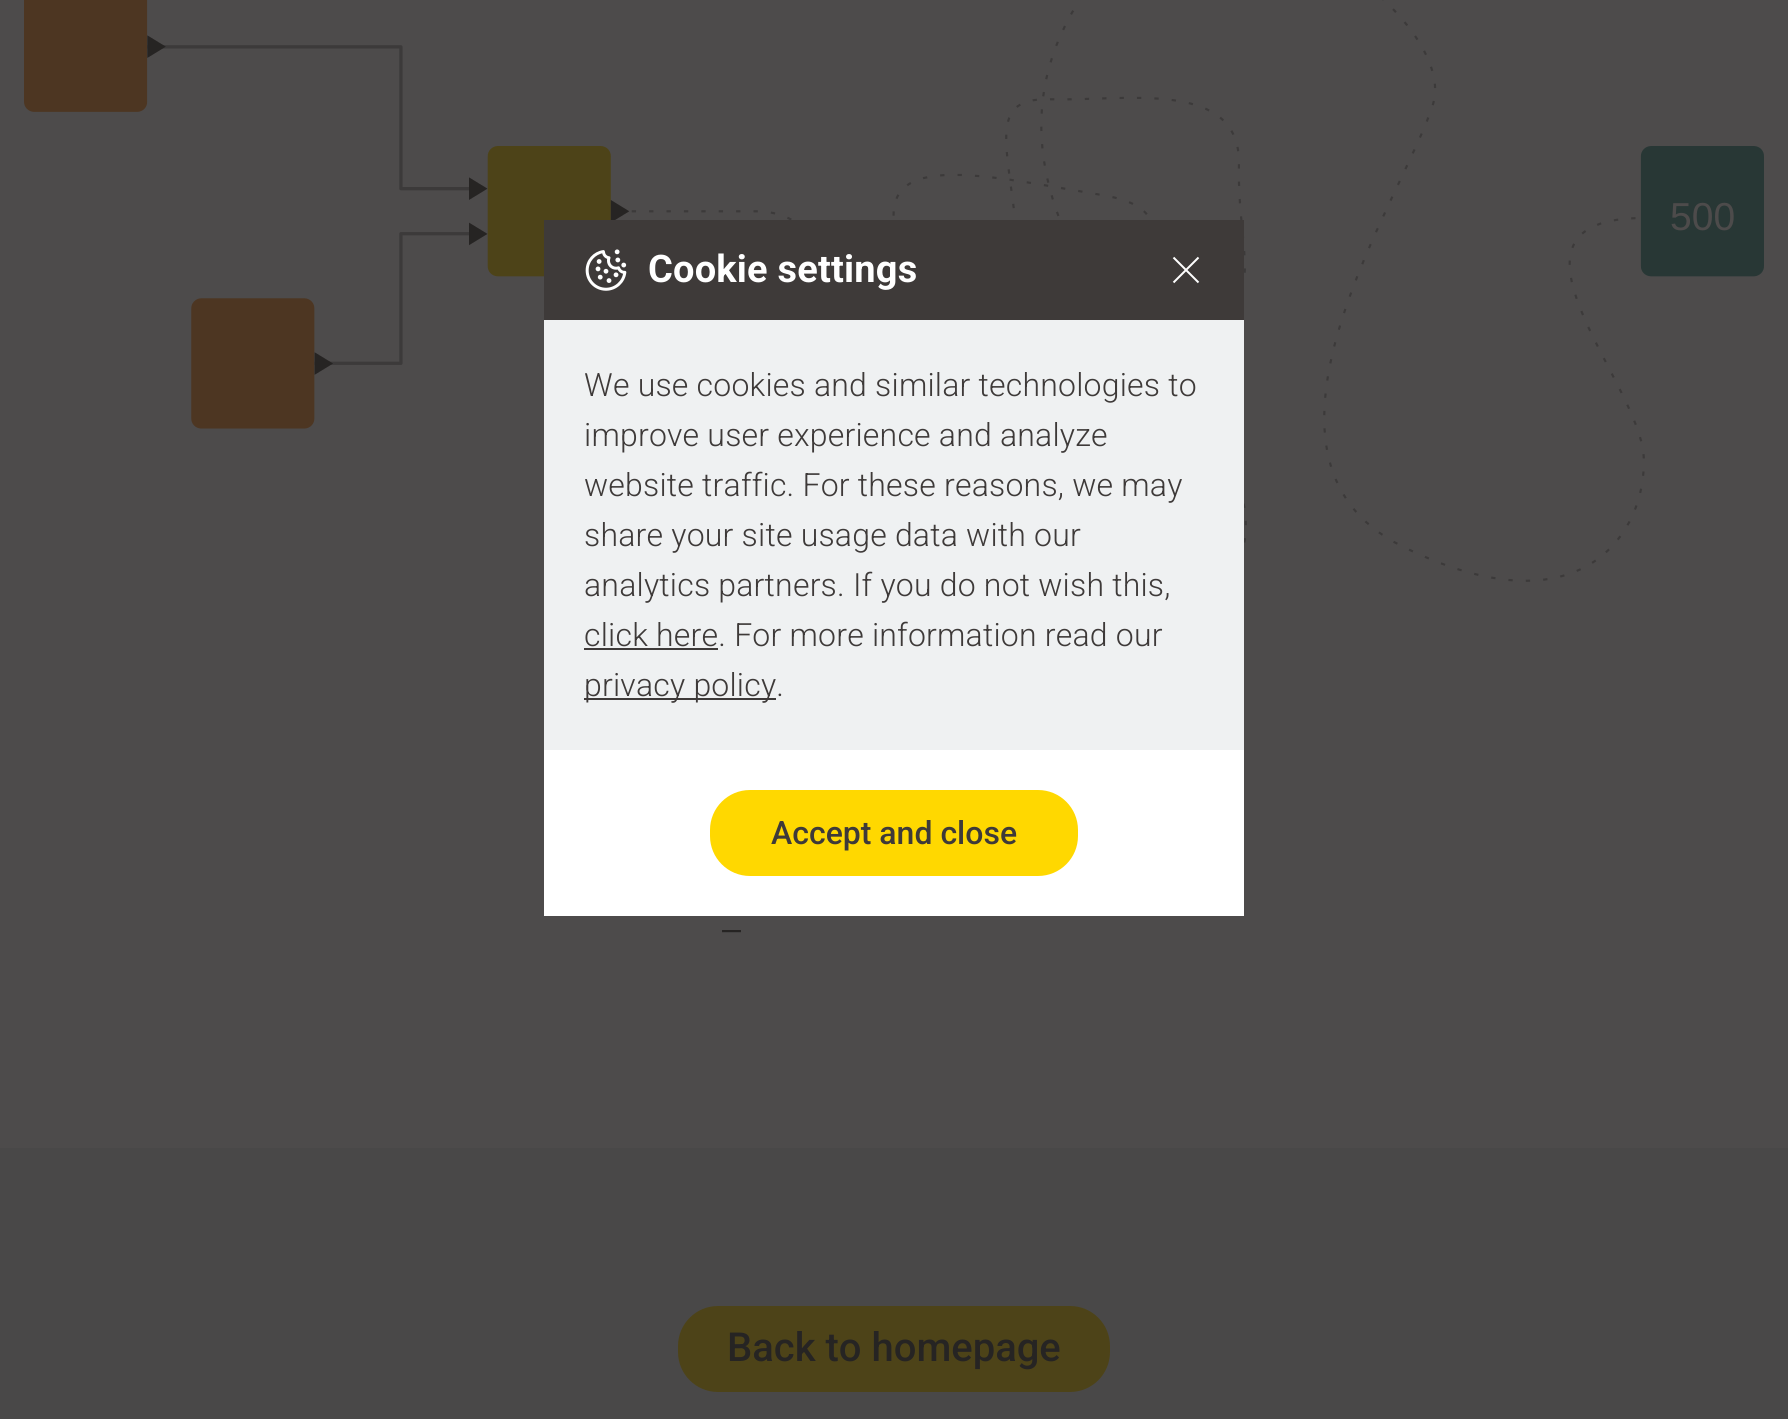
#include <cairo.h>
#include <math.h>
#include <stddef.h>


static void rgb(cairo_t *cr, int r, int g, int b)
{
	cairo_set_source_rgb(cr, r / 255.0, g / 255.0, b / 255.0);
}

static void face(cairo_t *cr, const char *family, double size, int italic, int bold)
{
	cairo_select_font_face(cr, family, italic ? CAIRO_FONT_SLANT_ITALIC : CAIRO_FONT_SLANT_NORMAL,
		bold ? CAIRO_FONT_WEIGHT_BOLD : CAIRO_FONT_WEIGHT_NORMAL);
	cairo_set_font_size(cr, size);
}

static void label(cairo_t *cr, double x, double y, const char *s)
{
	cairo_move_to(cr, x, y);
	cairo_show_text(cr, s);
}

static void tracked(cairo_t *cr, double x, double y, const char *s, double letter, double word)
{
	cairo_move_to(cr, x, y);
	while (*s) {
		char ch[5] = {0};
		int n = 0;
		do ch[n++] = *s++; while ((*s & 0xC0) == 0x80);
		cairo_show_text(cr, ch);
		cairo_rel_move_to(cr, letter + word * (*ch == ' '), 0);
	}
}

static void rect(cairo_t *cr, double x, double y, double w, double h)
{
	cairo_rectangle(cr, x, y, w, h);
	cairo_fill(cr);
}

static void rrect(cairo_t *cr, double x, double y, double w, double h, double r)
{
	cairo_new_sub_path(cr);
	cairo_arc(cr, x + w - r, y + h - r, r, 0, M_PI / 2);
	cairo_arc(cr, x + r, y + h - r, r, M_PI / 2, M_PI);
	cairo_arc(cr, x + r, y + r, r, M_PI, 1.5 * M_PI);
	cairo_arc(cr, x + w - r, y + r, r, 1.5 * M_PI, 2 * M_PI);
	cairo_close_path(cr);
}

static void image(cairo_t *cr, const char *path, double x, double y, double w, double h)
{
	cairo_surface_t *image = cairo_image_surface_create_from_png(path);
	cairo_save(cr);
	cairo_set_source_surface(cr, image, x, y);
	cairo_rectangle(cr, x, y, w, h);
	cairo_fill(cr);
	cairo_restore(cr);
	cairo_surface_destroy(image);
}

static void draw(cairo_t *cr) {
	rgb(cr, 73, 72, 72);
	cairo_paint(cr);
	rgb(cr, 77, 75, 75);
	rect(cr, 0, 0, 1788, 1148);
	image(cr, "image0.png", 24, 0, 1740, 582);
	face(cr, "Liberation Sans", 39, 0, 0);
	label(cr, 1670, 230, "500");
	face(cr, "Roboto Light", 44, 0, 0);
	rgb(cr, 38, 36, 35);
	tracked(cr, 722, 930, "_", 0.2, 0);
	rgb(cr, 77, 67, 24);
	rrect(cr, 678, 1306, 432, 86, 40);
	cairo_fill(cr);
	face(cr, "Roboto Medium", 40, 0, 0);
	rgb(cr, 38, 36, 35);
	label(cr, 727, 1361, "Back to homepage");
	rgb(cr, 255, 255, 255);
	rect(cr, 544, 750, 700, 166);
	rgb(cr, 62, 58, 57);
	rect(cr, 544, 220, 700, 100);
	image(cr, "image1.png", 585, 249, 42, 42);
	face(cr, "Roboto", 38, 0, 1);
	rgb(cr, 255, 255, 255);
	tracked(cr, 648, 282, "Cookie settings", 0.2, 0);
	cairo_new_path(cr);
	cairo_move_to(cr, 1173.5, 282.5);
	cairo_line_to(cr, 1198.5, 257.5);
	cairo_move_to(cr, 1173.5, 257.5);
	cairo_line_to(cr, 1198.5, 282.5);
	cairo_set_line_join(cr, CAIRO_LINE_JOIN_ROUND);
	cairo_stroke(cr);
	rgb(cr, 239, 241, 242);
	rect(cr, 544, 320, 700, 430);
	face(cr, "Roboto Light", 32, 0, 0);
	rgb(cr, 62, 58, 57);
	tracked(cr, 584, 396, "We use cookies and similar technologies to", 0.2, 0);
	tracked(cr, 584, 446, "improve user experience and analyze", 0.2, 0);
	tracked(cr, 584, 496, "website traffic. For these reasons, we may", 0.2, 0);
	tracked(cr, 584, 546, "share your site usage data with our", 0.2, 0);
	tracked(cr, 584, 596, "analytics partners. If you do not wish this,", 0.2, 0);
	tracked(cr, 584, 646, "click here. For more information read our", 0.2, 0);
	rect(cr, 584, 648, 134, 2);
	rect(cr, 584, 698, 192, 2);
	tracked(cr, 584, 696, "privacy policy.", 0.2, 0);
	rgb(cr, 255, 216, 0);
	rrect(cr, 710, 790, 368, 86, 40);
	cairo_fill(cr);
	face(cr, "Roboto Medium", 32, 0, 0);
	rgb(cr, 62, 58, 57);
	label(cr, 771, 844, "Accept and close");
}

int main(void) {
	cairo_surface_t *surface = cairo_image_surface_create(CAIRO_FORMAT_RGB24, 1788, 1419);
	cairo_t *cr = cairo_create(surface);
	cairo_font_options_t *options = cairo_font_options_create();
	cairo_font_options_set_hint_metrics(options, CAIRO_HINT_METRICS_OFF);
	cairo_font_options_set_hint_style(options, CAIRO_HINT_STYLE_NONE);
	cairo_set_font_options(cr, options);
	cairo_set_miter_limit(cr, 4);
	draw(cr);
	cairo_surface_write_to_png(surface, "render.png");
	cairo_font_options_destroy(options);
	cairo_destroy(cr);
	cairo_surface_destroy(surface);
	return 0;
}
